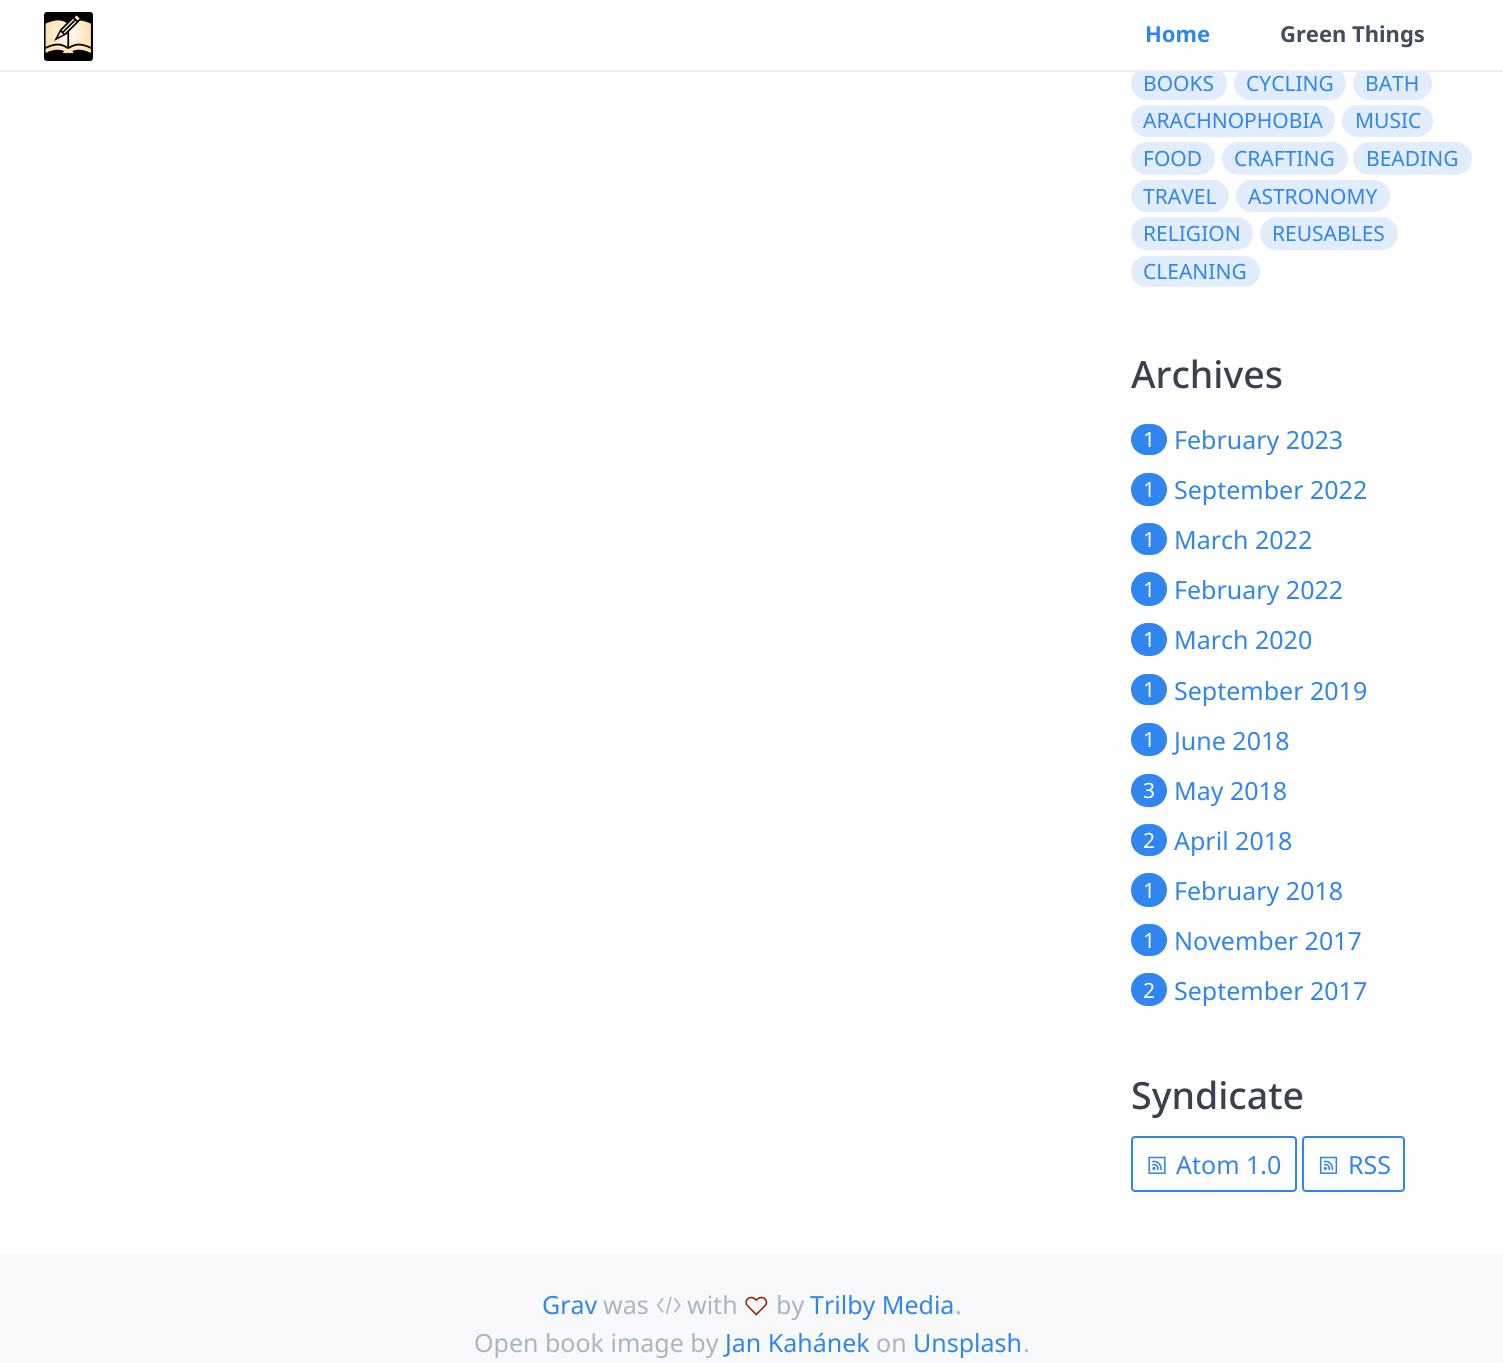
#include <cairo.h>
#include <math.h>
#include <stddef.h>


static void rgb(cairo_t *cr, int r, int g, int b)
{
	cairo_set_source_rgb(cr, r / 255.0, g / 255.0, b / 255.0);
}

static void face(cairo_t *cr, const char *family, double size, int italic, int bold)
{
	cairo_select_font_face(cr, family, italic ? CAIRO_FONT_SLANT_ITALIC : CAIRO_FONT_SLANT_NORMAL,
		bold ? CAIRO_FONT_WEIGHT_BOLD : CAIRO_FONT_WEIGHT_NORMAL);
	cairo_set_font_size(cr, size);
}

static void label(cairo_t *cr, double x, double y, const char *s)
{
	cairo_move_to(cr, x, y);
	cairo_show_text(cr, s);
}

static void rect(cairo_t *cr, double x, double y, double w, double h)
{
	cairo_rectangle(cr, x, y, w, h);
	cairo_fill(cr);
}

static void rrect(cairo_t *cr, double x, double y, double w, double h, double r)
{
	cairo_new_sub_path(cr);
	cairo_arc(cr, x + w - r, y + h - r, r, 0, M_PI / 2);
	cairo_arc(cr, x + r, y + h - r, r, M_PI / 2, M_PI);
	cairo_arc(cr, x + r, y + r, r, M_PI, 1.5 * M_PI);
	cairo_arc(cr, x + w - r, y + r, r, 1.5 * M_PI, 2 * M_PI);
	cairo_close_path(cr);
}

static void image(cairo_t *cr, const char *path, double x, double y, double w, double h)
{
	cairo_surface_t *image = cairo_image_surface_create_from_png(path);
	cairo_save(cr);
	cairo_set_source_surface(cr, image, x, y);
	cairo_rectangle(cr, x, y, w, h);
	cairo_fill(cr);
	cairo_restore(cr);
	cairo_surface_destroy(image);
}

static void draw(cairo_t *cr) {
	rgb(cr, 255, 255, 255);
	cairo_paint(cr);
	rgb(cr, 225, 237, 253);
	rrect(cr, 1131, 67, 96, 33, 16.5);
	cairo_fill(cr);
	rrect(cr, 1234, 67, 112, 33, 16.5);
	cairo_fill(cr);
	rrect(cr, 1353, 67, 79, 33, 16.5);
	cairo_fill(cr);
	rgb(cr, 255, 255, 255);
	rect(cr, 1138, 67, 287, 3);
	rgb(cr, 238, 240, 243);
	rect(cr, 0, 70, 1503, 2);
	image(cr, "image0.png", 44, 12, 49, 49);
	face(cr, "Noto Sans", 22, 0, 1);
	rgb(cr, 48, 133, 238);
	label(cr, 1145, 42, "Home");
	rgb(cr, 69, 77, 93);
	label(cr, 1280, 42, "Green Things");
	face(cr, "Noto Sans", 21, 0, 0);
	rgb(cr, 48, 133, 238);
	label(cr, 1143, 91, "BOOKS");
	label(cr, 1246, 91, "CYCLING");
	label(cr, 1365, 91, "BATH");
	rgb(cr, 225, 237, 253);
	rrect(cr, 1131, 105, 204, 32, 16);
	cairo_fill(cr);
	rgb(cr, 48, 133, 238);
	label(cr, 1143, 128, "ARACHNOPHOBIA");
	rgb(cr, 225, 237, 253);
	rrect(cr, 1342, 105, 91, 32, 16);
	cairo_fill(cr);
	rgb(cr, 48, 133, 238);
	label(cr, 1355, 128, "MUSIC");
	rgb(cr, 225, 237, 253);
	rrect(cr, 1131, 142, 84, 33, 16.5);
	cairo_fill(cr);
	rgb(cr, 48, 133, 238);
	label(cr, 1143, 166, "FOOD");
	rgb(cr, 225, 237, 253);
	rrect(cr, 1222, 142, 126, 33, 16.5);
	cairo_fill(cr);
	rgb(cr, 48, 133, 238);
	label(cr, 1234, 166, "CRAFTING");
	rgb(cr, 225, 237, 253);
	rrect(cr, 1353, 142, 119, 33, 16.5);
	cairo_fill(cr);
	rgb(cr, 48, 133, 238);
	label(cr, 1366, 166, "BEADING");
	rgb(cr, 225, 237, 253);
	rrect(cr, 1131, 180, 98, 32, 16);
	cairo_fill(cr);
	rgb(cr, 48, 133, 238);
	label(cr, 1143, 204, "TRAVEL");
	rgb(cr, 225, 237, 253);
	rrect(cr, 1236, 180, 154, 32, 16);
	cairo_fill(cr);
	rgb(cr, 48, 133, 238);
	label(cr, 1248, 204, "ASTRONOMY");
	rgb(cr, 225, 237, 253);
	rrect(cr, 1131, 217, 122, 33, 16.5);
	cairo_fill(cr);
	rgb(cr, 48, 133, 238);
	label(cr, 1143, 241, "RELIGION");
	rgb(cr, 225, 237, 253);
	rrect(cr, 1260, 217, 138, 33, 16.5);
	cairo_fill(cr);
	rgb(cr, 48, 133, 238);
	label(cr, 1272, 241, "REUSABLES");
	rgb(cr, 225, 237, 253);
	rrect(cr, 1131, 256, 129, 31, 15.5);
	cairo_fill(cr);
	rgb(cr, 48, 133, 238);
	label(cr, 1143, 279, "CLEANING");
	face(cr, "Noto Sans Medium", 37.5, 0, 0);
	rgb(cr, 58, 65, 78);
	label(cr, 1131, 388, "Archives");
	rgb(cr, 48, 133, 238);
	rrect(cr, 1131, 424, 36, 31, 15.5);
	cairo_fill(cr);
	face(cr, "Noto Sans", 21, 0, 0);
	rgb(cr, 255, 255, 255);
	label(cr, 1143, 447, "1");
	face(cr, "Noto Sans", 25, 0, 0);
	rgb(cr, 48, 133, 238);
	label(cr, 1174, 449, "February 2023");
	rrect(cr, 1131, 473, 36, 33, 16.5);
	cairo_fill(cr);
	face(cr, "Noto Sans", 21, 0, 0);
	rgb(cr, 255, 255, 255);
	label(cr, 1143, 497, "1");
	face(cr, "Noto Sans", 25, 0, 0);
	rgb(cr, 48, 133, 238);
	label(cr, 1174, 499, "September 2022");
	rrect(cr, 1131, 523, 36, 32, 16);
	cairo_fill(cr);
	face(cr, "Noto Sans", 21, 0, 0);
	rgb(cr, 255, 255, 255);
	label(cr, 1143, 547, "1");
	face(cr, "Noto Sans", 25, 0, 0);
	rgb(cr, 48, 133, 238);
	label(cr, 1174, 549, "March 2022");
	rrect(cr, 1131, 572, 36, 34, 17);
	cairo_fill(cr);
	face(cr, "Noto Sans", 21, 0, 0);
	rgb(cr, 255, 255, 255);
	label(cr, 1143, 597, "1");
	face(cr, "Noto Sans", 25, 0, 0);
	rgb(cr, 48, 133, 238);
	label(cr, 1174, 599, "February 2022");
	rrect(cr, 1131, 623, 36, 33, 16.5);
	cairo_fill(cr);
	face(cr, "Noto Sans", 21, 0, 0);
	rgb(cr, 255, 255, 255);
	label(cr, 1143, 647, "1");
	face(cr, "Noto Sans", 25, 0, 0);
	rgb(cr, 48, 133, 238);
	label(cr, 1174, 649, "March 2020");
	rrect(cr, 1131, 674, 36, 31, 15.5);
	cairo_fill(cr);
	face(cr, "Noto Sans", 21, 0, 0);
	rgb(cr, 255, 255, 255);
	label(cr, 1143, 697, "1");
	face(cr, "Noto Sans", 25, 0, 0);
	rgb(cr, 48, 133, 238);
	label(cr, 1174, 700, "September 2019");
	rrect(cr, 1131, 723, 36, 33, 16.5);
	cairo_fill(cr);
	face(cr, "Noto Sans", 21, 0, 0);
	rgb(cr, 255, 255, 255);
	label(cr, 1143, 747, "1");
	face(cr, "Noto Sans", 25, 0, 0);
	rgb(cr, 48, 133, 238);
	label(cr, 1174, 750, "June 2018");
	rrect(cr, 1131, 774, 36, 33, 16.5);
	cairo_fill(cr);
	face(cr, "Noto Sans", 21, 0, 0);
	rgb(cr, 255, 255, 255);
	label(cr, 1143, 798, "3");
	face(cr, "Noto Sans", 25, 0, 0);
	rgb(cr, 48, 133, 238);
	label(cr, 1174, 800, "May 2018");
	rrect(cr, 1131, 824, 36, 32, 16);
	cairo_fill(cr);
	face(cr, "Noto Sans", 21, 0, 0);
	rgb(cr, 255, 255, 255);
	label(cr, 1143, 848, "2");
	face(cr, "Noto Sans", 25, 0, 0);
	rgb(cr, 48, 133, 238);
	label(cr, 1174, 850, "April 2018");
	rrect(cr, 1131, 873, 36, 34, 17);
	cairo_fill(cr);
	face(cr, "Noto Sans", 21, 0, 0);
	rgb(cr, 255, 255, 255);
	label(cr, 1143, 898, "1");
	face(cr, "Noto Sans", 25, 0, 0);
	rgb(cr, 48, 133, 238);
	label(cr, 1174, 900, "February 2018");
	rrect(cr, 1131, 924, 36, 32, 16);
	cairo_fill(cr);
	face(cr, "Noto Sans", 21, 0, 0);
	rgb(cr, 255, 255, 255);
	label(cr, 1143, 948, "1");
	face(cr, "Noto Sans", 25, 0, 0);
	rgb(cr, 48, 133, 238);
	label(cr, 1174, 950, "November 2017");
	rrect(cr, 1131, 973, 36, 33, 16.5);
	cairo_fill(cr);
	face(cr, "Noto Sans", 21, 0, 0);
	rgb(cr, 255, 255, 255);
	label(cr, 1143, 998, "2");
	face(cr, "Noto Sans", 25, 0, 0);
	rgb(cr, 48, 133, 238);
	label(cr, 1174, 1000, "September 2017");
	face(cr, "Noto Sans Medium", 37.5, 0, 0);
	rgb(cr, 58, 65, 78);
	label(cr, 1131, 1109, "Syndicate");
	rrect(cr, 1132, 1137, 164, 54, 3);
	rgb(cr, 48, 133, 238);
	cairo_stroke(cr);
	image(cr, "image1.png", 1148, 1156, 18, 18);
	face(cr, "Noto Sans", 25, 0, 0);
	label(cr, 1176, 1174, "Atom 1.0");
	rrect(cr, 1303, 1137, 101, 54, 3);
	cairo_stroke(cr);
	image(cr, "image2.png", 1319, 1156, 19, 18);
	label(cr, 1348, 1174, "RSS");
	rgb(cr, 248, 249, 250);
	rect(cr, 0, 1255, 1503, 108);
	rgb(cr, 48, 133, 238);
	label(cr, 542, 1314, "Grav");
	rgb(cr, 172, 179, 194);
	label(cr, 603, 1314, "was");
	image(cr, "image3.png", 657, 1296, 24, 18);
	label(cr, 687, 1314, "with");
	image(cr, "image4.png", 745, 1296, 23, 20);
	label(cr, 776, 1314, "by");
	rgb(cr, 48, 133, 238);
	label(cr, 810, 1314, "Trilby Media");
	rgb(cr, 172, 179, 194);
	label(cr, 955, 1314, ".");
	label(cr, 474, 1352, "Open book image by");
	rgb(cr, 48, 133, 238);
	label(cr, 725, 1352, "Jan Kahánek");
	rgb(cr, 172, 179, 194);
	label(cr, 876, 1352, "on");
	rgb(cr, 48, 133, 238);
	label(cr, 913, 1352, "Unsplash");
	rgb(cr, 172, 179, 194);
	label(cr, 1023, 1352, ".");
}

int main(void) {
	cairo_surface_t *surface = cairo_image_surface_create(CAIRO_FORMAT_RGB24, 1503, 1363);
	cairo_t *cr = cairo_create(surface);
	cairo_font_options_t *options = cairo_font_options_create();
	cairo_font_options_set_hint_metrics(options, CAIRO_HINT_METRICS_OFF);
	cairo_font_options_set_hint_style(options, CAIRO_HINT_STYLE_NONE);
	cairo_set_font_options(cr, options);
	cairo_set_miter_limit(cr, 4);
	draw(cr);
	cairo_surface_write_to_png(surface, "render.png");
	cairo_font_options_destroy(options);
	cairo_destroy(cr);
	cairo_surface_destroy(surface);
	return 0;
}
